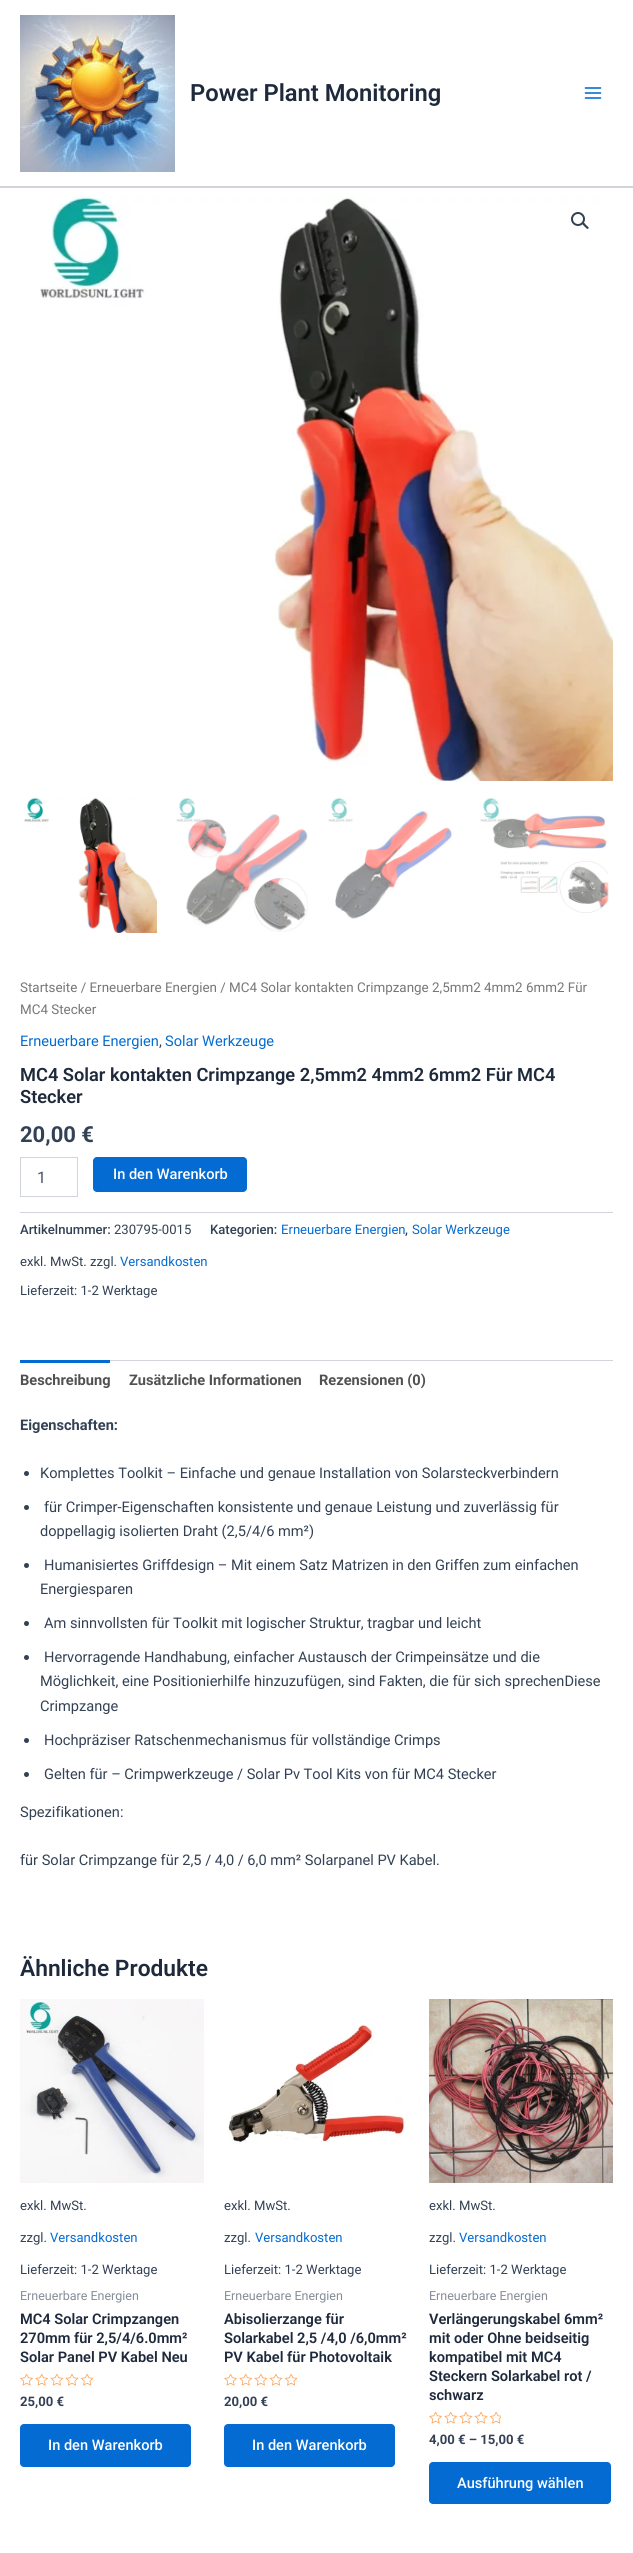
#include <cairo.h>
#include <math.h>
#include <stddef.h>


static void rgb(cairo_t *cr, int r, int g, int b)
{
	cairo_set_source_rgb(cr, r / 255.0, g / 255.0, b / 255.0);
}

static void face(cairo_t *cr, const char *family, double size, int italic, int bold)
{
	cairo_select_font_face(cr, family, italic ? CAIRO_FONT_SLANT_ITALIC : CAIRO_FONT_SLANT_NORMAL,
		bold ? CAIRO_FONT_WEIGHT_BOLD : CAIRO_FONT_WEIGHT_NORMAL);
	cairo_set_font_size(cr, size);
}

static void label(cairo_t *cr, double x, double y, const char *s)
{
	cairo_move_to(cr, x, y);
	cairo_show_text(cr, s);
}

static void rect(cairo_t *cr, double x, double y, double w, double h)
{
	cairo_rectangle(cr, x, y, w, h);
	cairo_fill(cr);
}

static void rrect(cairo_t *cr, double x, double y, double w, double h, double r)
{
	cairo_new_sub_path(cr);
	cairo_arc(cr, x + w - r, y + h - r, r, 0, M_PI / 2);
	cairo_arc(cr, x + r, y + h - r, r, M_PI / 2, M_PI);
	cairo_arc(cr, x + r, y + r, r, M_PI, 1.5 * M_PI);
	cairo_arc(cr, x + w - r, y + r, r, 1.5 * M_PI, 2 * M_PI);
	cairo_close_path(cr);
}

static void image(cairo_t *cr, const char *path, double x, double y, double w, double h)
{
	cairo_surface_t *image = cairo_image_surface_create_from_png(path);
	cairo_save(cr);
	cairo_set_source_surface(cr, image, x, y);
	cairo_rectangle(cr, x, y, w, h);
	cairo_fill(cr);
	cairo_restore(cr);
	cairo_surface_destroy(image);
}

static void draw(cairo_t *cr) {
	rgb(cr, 255, 255, 255);
	cairo_paint(cr);
	rgb(cr, 209, 213, 219);
	rect(cr, 0, 186, 633, 2);
	image(cr, "image0.png", 20, 15, 155, 157);
	face(cr, "Roboto SemiBold", 23.75, 0, 0);
	rgb(cr, 30, 41, 59);
	label(cr, 190, 101, "Power Plant Monitoring");
	image(cr, "image1.png", 584, 87, 18, 12);
	image(cr, "image2.png", 40, 196, 573, 585);
	cairo_arc(cr, 578, 219, 6, 0, 2 * M_PI);
	rgb(cr, 51, 65, 85);
	cairo_stroke(cr);
	cairo_new_path(cr);
	cairo_move_to(cr, 582.5, 223);
	cairo_curve_to(cr, 584, 221.5, 585.5, 224.5, 586, 225);
	cairo_curve_to(cr, 586.5, 225.5, 589.5, 227.5, 588.5, 228.5);
	cairo_curve_to(cr, 587, 230, 585.5, 227, 584.5, 226.5);
	cairo_curve_to(cr, 584, 226, 581.5, 224, 582.5, 223);
	cairo_close_path(cr);
	cairo_fill(cr);
	image(cr, "image3.png", 24, 797, 133, 136);
	image(cr, "image4.png", 176, 797, 132, 135);
	image(cr, "image5.png", 328, 797, 124, 122);
	image(cr, "image6.png", 480, 797, 129, 116);
	face(cr, "Roboto", 13.4, 0, 0);
	rgb(cr, 119, 119, 119);
	label(cr, 20, 992, "Startseite / Erneuerbare Energien / MC4 Solar kontakten Crimpzange 2,5mm2 4mm2 6mm2 Für");
	label(cr, 20, 1014, "MC4 Stecker");
	face(cr, "Roboto", 14.6, 0, 0);
	rgb(cr, 4, 107, 210);
	label(cr, 20, 1046, "Erneuerbare Energien");
	rgb(cr, 51, 65, 85);
	label(cr, 159, 1046, ",");
	rgb(cr, 4, 107, 210);
	label(cr, 165, 1046, "Solar Werkzeuge");
	face(cr, "Roboto SemiBold", 18.25, 0, 0);
	rgb(cr, 30, 41, 59);
	label(cr, 20, 1081, "MC4 Solar kontakten Crimpzange 2,5mm2 4mm2 6mm2 Für MC4");
	label(cr, 20, 1103, "Stecker");
	face(cr, "Roboto", 22, 0, 1);
	rgb(cr, 51, 65, 85);
	label(cr, 20, 1142, "20,00 €");
	cairo_rectangle(cr, 20.5, 1157.5, 57, 39);
	rgb(cr, 209, 213, 219);
	cairo_set_line_width(cr, 1);
	cairo_stroke(cr);
	face(cr, "Roboto", 16, 0, 0);
	rgb(cr, 71, 85, 105);
	label(cr, 37, 1183, "1");
	rgb(cr, 4, 107, 210);
	rrect(cr, 93, 1157, 154, 35, 4);
	cairo_fill(cr);
	face(cr, "Roboto Medium", 14.6, 0, 0);
	rgb(cr, 255, 255, 255);
	label(cr, 113, 1179, "In den Warenkorb");
	rgb(cr, 209, 213, 219);
	rect(cr, 20, 1212, 593, 1);
	face(cr, "Roboto Medium", 13.1, 0, 0);
	rgb(cr, 51, 65, 85);
	label(cr, 20, 1234, "Artikelnummer:");
	face(cr, "Roboto", 13.1, 0, 0);
	label(cr, 114, 1234, "230795-0015");
	face(cr, "Roboto Medium", 13.1, 0, 0);
	label(cr, 210, 1234, "Kategorien:");
	face(cr, "Roboto", 13.1, 0, 0);
	rgb(cr, 4, 107, 210);
	label(cr, 281, 1234, "Erneuerbare Energien");
	face(cr, "Roboto Medium", 13.1, 0, 0);
	rgb(cr, 51, 65, 85);
	label(cr, 405, 1234, ",");
	face(cr, "Roboto", 13.1, 0, 0);
	rgb(cr, 4, 107, 210);
	label(cr, 412, 1234, "Solar Werkzeuge");
	rgb(cr, 51, 65, 85);
	label(cr, 20, 1266, "exkl. MwSt. zzgl.");
	rgb(cr, 4, 107, 210);
	label(cr, 120, 1266, "Versandkosten");
	rgb(cr, 51, 65, 85);
	label(cr, 20, 1295, "Lieferzeit: 1-2 Werktage");
	rgb(cr, 209, 213, 219);
	rect(cr, 110, 1360, 503, 1);
	rgb(cr, 4, 107, 210);
	rect(cr, 20, 1360, 90, 3);
	face(cr, "Roboto", 14.6, 0, 1);
	rgb(cr, 81, 81, 81);
	label(cr, 20, 1385, "Beschreibung");
	label(cr, 129, 1385, "Zusätzliche Informationen");
	label(cr, 319, 1385, "Rezensionen (0)");
	rgb(cr, 51, 65, 85);
	label(cr, 20, 1430, "Eigenschaften:");
	cairo_new_path(cr);
	cairo_arc(cr, 26.5, 1473.5, 2.5, 0, 2 * M_PI);
	cairo_fill(cr);
	face(cr, "Roboto", 14.6, 0, 0);
	label(cr, 40, 1478, "Komplettes Toolkit – Einfache und genaue Installation von Solarsteckverbindern");
	cairo_new_path(cr);
	cairo_arc(cr, 26.5, 1507.5, 2.5, 0, 2 * M_PI);
	cairo_fill(cr);
	label(cr, 44, 1512, "für Crimper-Eigenschaften konsistente und genaue Leistung und zuverlässig für");
	label(cr, 40, 1536, "doppellagig isolierten Draht (2,5/4/6 mm²)");
	cairo_new_path(cr);
	cairo_arc(cr, 26.5, 1565.5, 2.5, 0, 2 * M_PI);
	cairo_fill(cr);
	label(cr, 44, 1570, "Humanisiertes Griffdesign – Mit einem Satz Matrizen in den Griffen zum einfachen");
	label(cr, 40, 1594, "Energiesparen");
	cairo_new_path(cr);
	cairo_arc(cr, 26.5, 1623.5, 2.5, 0, 2 * M_PI);
	cairo_fill(cr);
	label(cr, 44, 1628, "Am sinnvollsten für Toolkit mit logischer Struktur, tragbar und leicht");
	cairo_new_path(cr);
	cairo_arc(cr, 26.5, 1657.5, 2.5, 0, 2 * M_PI);
	cairo_fill(cr);
	label(cr, 44, 1662, "Hervorragende Handhabung, einfacher Austausch der Crimpeinsätze und die");
	label(cr, 40, 1686, "Möglichkeit, eine Positionierhilfe hinzuzufügen, sind Fakten, die für sich sprechenDiese");
	label(cr, 40, 1711, "Crimpzange");
	cairo_new_path(cr);
	cairo_arc(cr, 26.5, 1740.5, 2.5, 0, 2 * M_PI);
	cairo_fill(cr);
	label(cr, 44, 1745, "Hochpräziser Ratschenmechanismus für vollständige Crimps");
	cairo_new_path(cr);
	cairo_arc(cr, 26.5, 1774.5, 2.5, 0, 2 * M_PI);
	cairo_fill(cr);
	label(cr, 44, 1779, "Gelten für – Crimpwerkzeuge / Solar Pv Tool Kits von für MC4 Stecker");
	label(cr, 20, 1817, "Spezifikationen:");
	label(cr, 20, 1865, "für Solar Crimpzange für 2,5 / 4,0 / 6,0 mm² Solarpanel PV Kabel.");
	face(cr, "Roboto SemiBold", 22.75, 0, 0);
	rgb(cr, 30, 41, 59);
	label(cr, 20, 1976, "Ähnliche Produkte");
	image(cr, "image7.png", 20, 1999, 184, 184);
	face(cr, "Roboto", 13.1, 0, 0);
	rgb(cr, 51, 65, 85);
	label(cr, 20, 2210, "exkl. MwSt.");
	label(cr, 20, 2242, "zzgl.");
	rgb(cr, 4, 107, 210);
	label(cr, 50, 2242, "Versandkosten");
	rgb(cr, 51, 65, 85);
	label(cr, 20, 2274, "Lieferzeit: 1-2 Werktage");
	face(cr, "Roboto", 12.5, 0, 0);
	rgb(cr, 133, 141, 153);
	label(cr, 20, 2300, "Erneuerbare Energien");
	face(cr, "Roboto SemiBold", 14.6, 0, 0);
	rgb(cr, 30, 41, 59);
	label(cr, 20, 2324, "MC4 Solar Crimpzangen");
	label(cr, 20, 2343, "270mm für 2,5/4/6.0mm²");
	label(cr, 20, 2362, "Solar Panel PV Kabel Neu");
	image(cr, "image8.png", 20, 2374, 73, 12);
	face(cr, "Roboto", 13.1, 0, 1);
	rgb(cr, 51, 65, 85);
	label(cr, 20, 2406, "25,00 €");
	rgb(cr, 4, 107, 210);
	rrect(cr, 20, 2424, 171, 43, 4);
	cairo_fill(cr);
	face(cr, "Roboto Medium", 14.6, 0, 0);
	rgb(cr, 255, 255, 255);
	label(cr, 48, 2450, "In den Warenkorb");
	image(cr, "image9.png", 228, 2024, 179, 120);
	face(cr, "Roboto", 13.1, 0, 0);
	rgb(cr, 51, 65, 85);
	label(cr, 224, 2210, "exkl. MwSt.");
	label(cr, 224, 2242, "zzgl.");
	rgb(cr, 4, 107, 210);
	label(cr, 255, 2242, "Versandkosten");
	rgb(cr, 51, 65, 85);
	label(cr, 224, 2274, "Lieferzeit: 1-2 Werktage");
	face(cr, "Roboto", 12.5, 0, 0);
	rgb(cr, 133, 141, 153);
	label(cr, 224, 2300, "Erneuerbare Energien");
	face(cr, "Roboto SemiBold", 14.6, 0, 0);
	rgb(cr, 30, 41, 59);
	label(cr, 224, 2324, "Abisolierzange für");
	label(cr, 224, 2343, "Solarkabel 2,5 /4,0 /6,0mm²");
	label(cr, 224, 2362, "PV Kabel für Photovoltaik");
	image(cr, "image8.png", 224, 2374, 73, 12);
	face(cr, "Roboto", 13.1, 0, 1);
	rgb(cr, 51, 65, 85);
	label(cr, 224, 2406, "20,00 €");
	rgb(cr, 4, 107, 210);
	rrect(cr, 224, 2424, 171, 43, 4);
	cairo_fill(cr);
	face(cr, "Roboto Medium", 14.6, 0, 0);
	rgb(cr, 255, 255, 255);
	label(cr, 252, 2450, "In den Warenkorb");
	image(cr, "image10.png", 429, 1999, 184, 184);
	face(cr, "Roboto", 13.1, 0, 0);
	rgb(cr, 51, 65, 85);
	label(cr, 429, 2210, "exkl. MwSt.");
	label(cr, 429, 2242, "zzgl.");
	rgb(cr, 4, 107, 210);
	label(cr, 459, 2242, "Versandkosten");
	rgb(cr, 51, 65, 85);
	label(cr, 429, 2274, "Lieferzeit: 1-2 Werktage");
	face(cr, "Roboto", 12.5, 0, 0);
	rgb(cr, 133, 141, 153);
	label(cr, 429, 2300, "Erneuerbare Energien");
	face(cr, "Roboto SemiBold", 14.6, 0, 0);
	rgb(cr, 30, 41, 59);
	label(cr, 429, 2324, "Verlängerungskabel 6mm²");
	label(cr, 429, 2343, "mit oder Ohne beidseitig");
	label(cr, 429, 2362, "kompatibel mit MC4");
	label(cr, 429, 2381, "Steckern Solarkabel rot /");
	label(cr, 429, 2400, "schwarz");
	image(cr, "image11.png", 429, 2412, 72, 12);
	face(cr, "Roboto", 13.1, 0, 1);
	rgb(cr, 51, 65, 85);
	label(cr, 429, 2444, "4,00 € – 15,00 €");
	rgb(cr, 4, 107, 210);
	rrect(cr, 429, 2462, 182, 42, 4);
	cairo_fill(cr);
	face(cr, "Roboto Medium", 14.6, 0, 0);
	rgb(cr, 255, 255, 255);
	label(cr, 457, 2488, "Ausführung wählen");
}

int main(void) {
	cairo_surface_t *surface = cairo_image_surface_create(CAIRO_FORMAT_RGB24, 633, 2553);
	cairo_t *cr = cairo_create(surface);
	cairo_font_options_t *options = cairo_font_options_create();
	cairo_font_options_set_hint_metrics(options, CAIRO_HINT_METRICS_OFF);
	cairo_font_options_set_hint_style(options, CAIRO_HINT_STYLE_NONE);
	cairo_set_font_options(cr, options);
	cairo_set_miter_limit(cr, 4);
	draw(cr);
	cairo_surface_write_to_png(surface, "render.png");
	cairo_font_options_destroy(options);
	cairo_destroy(cr);
	cairo_surface_destroy(surface);
	return 0;
}
